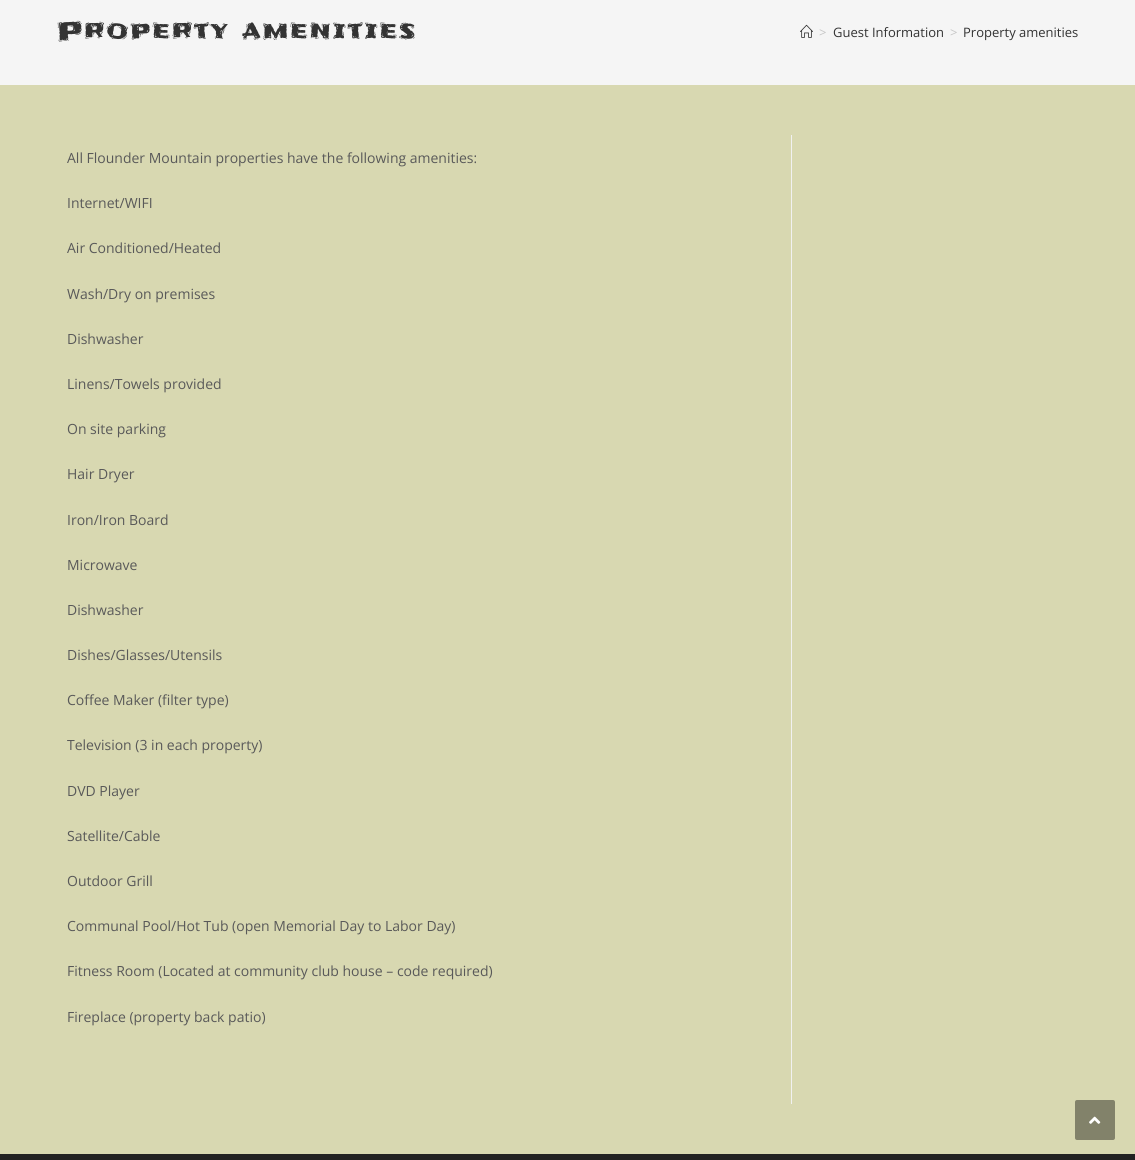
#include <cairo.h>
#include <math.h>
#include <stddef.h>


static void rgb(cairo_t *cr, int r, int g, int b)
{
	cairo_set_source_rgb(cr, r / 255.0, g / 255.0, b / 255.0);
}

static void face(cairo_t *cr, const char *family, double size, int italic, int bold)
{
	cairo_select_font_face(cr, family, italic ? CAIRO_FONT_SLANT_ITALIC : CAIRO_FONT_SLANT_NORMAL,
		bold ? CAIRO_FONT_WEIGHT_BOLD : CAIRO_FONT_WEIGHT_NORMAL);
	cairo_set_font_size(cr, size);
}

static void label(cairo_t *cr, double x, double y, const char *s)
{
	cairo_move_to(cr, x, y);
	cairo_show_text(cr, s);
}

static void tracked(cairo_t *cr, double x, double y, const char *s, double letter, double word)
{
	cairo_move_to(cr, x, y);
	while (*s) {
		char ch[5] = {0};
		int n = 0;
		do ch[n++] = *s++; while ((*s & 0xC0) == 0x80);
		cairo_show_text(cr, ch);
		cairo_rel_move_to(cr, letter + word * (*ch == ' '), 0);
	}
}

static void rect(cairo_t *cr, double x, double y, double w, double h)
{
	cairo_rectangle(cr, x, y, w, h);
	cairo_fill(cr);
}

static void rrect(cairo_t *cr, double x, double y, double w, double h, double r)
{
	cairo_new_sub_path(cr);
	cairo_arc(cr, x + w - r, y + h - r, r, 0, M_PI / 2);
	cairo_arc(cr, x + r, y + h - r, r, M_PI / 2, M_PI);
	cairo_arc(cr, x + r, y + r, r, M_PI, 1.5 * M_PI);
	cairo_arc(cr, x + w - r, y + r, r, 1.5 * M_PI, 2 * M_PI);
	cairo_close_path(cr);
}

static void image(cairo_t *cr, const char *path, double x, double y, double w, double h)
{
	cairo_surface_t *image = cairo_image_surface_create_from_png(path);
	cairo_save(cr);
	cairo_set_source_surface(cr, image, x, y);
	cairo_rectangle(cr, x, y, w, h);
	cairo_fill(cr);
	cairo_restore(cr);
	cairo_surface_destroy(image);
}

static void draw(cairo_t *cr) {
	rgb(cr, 216, 216, 177);
	cairo_paint(cr);
	rgb(cr, 245, 245, 245);
	rect(cr, 0, 0, 1135, 85);
	face(cr, "Frijole", 25, 0, 0);
	rgb(cr, 51, 51, 51);
	tracked(cr, 57, 40, "Property amenities", 1.6, 0);
	image(cr, "image0.png", 800, 24, 13, 14);
	face(cr, "Open Sans", 13, 0, 0);
	rgb(cr, 198, 198, 198);
	label(cr, 819, 37, ">");
	rgb(cr, 51, 51, 51);
	label(cr, 833, 37, "Guest Information");
	rgb(cr, 198, 198, 198);
	label(cr, 950, 37, ">");
	rgb(cr, 51, 51, 51);
	label(cr, 963, 37, "Property amenities");
	rgb(cr, 241, 241, 241);
	rect(cr, 791, 135, 1, 969);
	face(cr, "Open Sans", 14, 0, 0);
	rgb(cr, 89, 89, 89);
	label(cr, 67, 163, "All Flounder Mountain properties have the following amenities:");
	label(cr, 67, 208, "Internet/WIFI");
	label(cr, 67, 253, "Air Conditioned/Heated");
	label(cr, 67, 299, "Wash/Dry on premises");
	label(cr, 67, 344, "Dishwasher");
	label(cr, 67, 389, "Linens/Towels provided");
	label(cr, 67, 434, "On site parking");
	label(cr, 67, 479, "Hair Dryer");
	label(cr, 67, 525, "Iron/Iron Board");
	label(cr, 67, 570, "Microwave");
	label(cr, 67, 615, "Dishwasher");
	label(cr, 67, 660, "Dishes/Glasses/Utensils");
	label(cr, 67, 705, "Coffee Maker (filter type)");
	label(cr, 67, 750, "Television (3 in each property)");
	label(cr, 67, 796, "DVD Player");
	label(cr, 67, 841, "Satellite/Cable");
	label(cr, 67, 886, "Outdoor Grill");
	label(cr, 67, 931, "Communal Pool/Hot Tub (open Memorial Day to Labor Day)");
	label(cr, 67, 976, "Fitness Room (Located at community club house – code required)");
	label(cr, 67, 1022, "Fireplace (property back patio)");
	rgb(cr, 34, 34, 34);
	rect(cr, 0, 1154, 1135, 6);
	rgb(cr, 130, 130, 106);
	rrect(cr, 1075, 1100, 40, 40, 2);
	cairo_fill(cr);
	image(cr, "image1.png", 1089, 1116, 12, 8);
}

int main(void) {
	cairo_surface_t *surface = cairo_image_surface_create(CAIRO_FORMAT_RGB24, 1135, 1160);
	cairo_t *cr = cairo_create(surface);
	cairo_font_options_t *options = cairo_font_options_create();
	cairo_font_options_set_hint_metrics(options, CAIRO_HINT_METRICS_OFF);
	cairo_font_options_set_hint_style(options, CAIRO_HINT_STYLE_NONE);
	cairo_set_font_options(cr, options);
	cairo_set_miter_limit(cr, 4);
	draw(cr);
	cairo_surface_write_to_png(surface, "render.png");
	cairo_font_options_destroy(options);
	cairo_destroy(cr);
	cairo_surface_destroy(surface);
	return 0;
}
